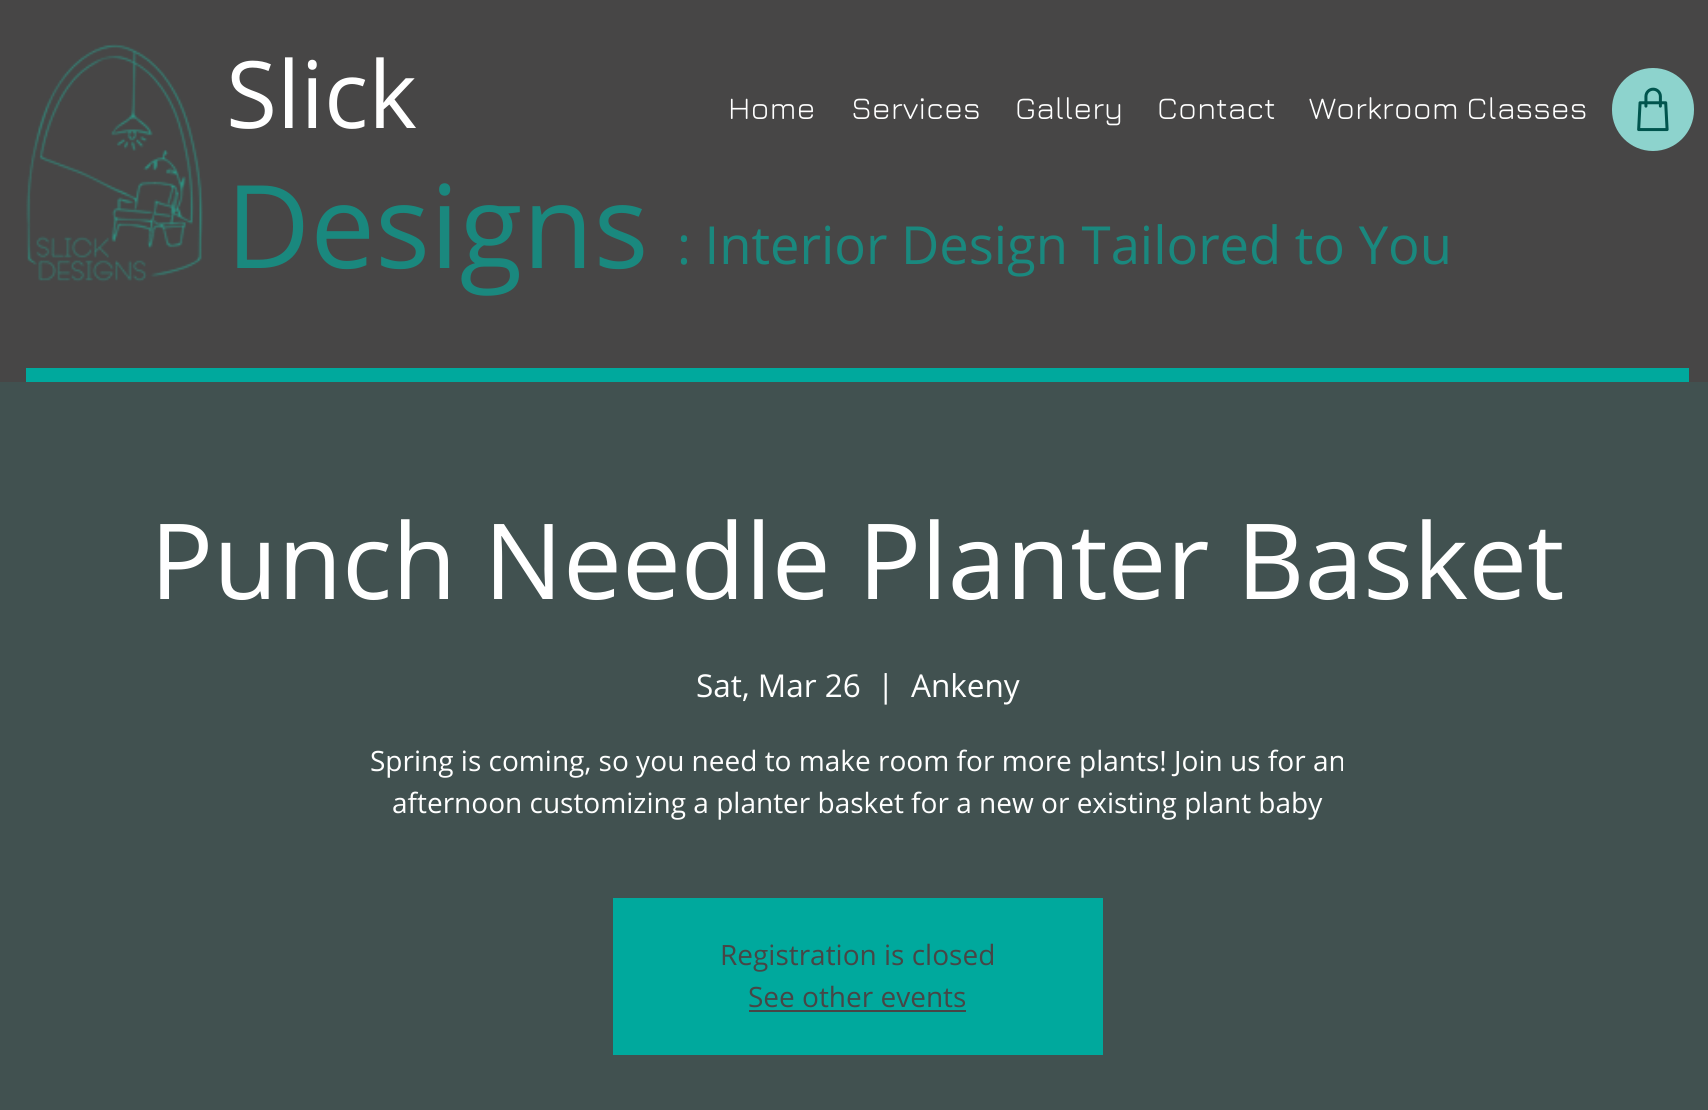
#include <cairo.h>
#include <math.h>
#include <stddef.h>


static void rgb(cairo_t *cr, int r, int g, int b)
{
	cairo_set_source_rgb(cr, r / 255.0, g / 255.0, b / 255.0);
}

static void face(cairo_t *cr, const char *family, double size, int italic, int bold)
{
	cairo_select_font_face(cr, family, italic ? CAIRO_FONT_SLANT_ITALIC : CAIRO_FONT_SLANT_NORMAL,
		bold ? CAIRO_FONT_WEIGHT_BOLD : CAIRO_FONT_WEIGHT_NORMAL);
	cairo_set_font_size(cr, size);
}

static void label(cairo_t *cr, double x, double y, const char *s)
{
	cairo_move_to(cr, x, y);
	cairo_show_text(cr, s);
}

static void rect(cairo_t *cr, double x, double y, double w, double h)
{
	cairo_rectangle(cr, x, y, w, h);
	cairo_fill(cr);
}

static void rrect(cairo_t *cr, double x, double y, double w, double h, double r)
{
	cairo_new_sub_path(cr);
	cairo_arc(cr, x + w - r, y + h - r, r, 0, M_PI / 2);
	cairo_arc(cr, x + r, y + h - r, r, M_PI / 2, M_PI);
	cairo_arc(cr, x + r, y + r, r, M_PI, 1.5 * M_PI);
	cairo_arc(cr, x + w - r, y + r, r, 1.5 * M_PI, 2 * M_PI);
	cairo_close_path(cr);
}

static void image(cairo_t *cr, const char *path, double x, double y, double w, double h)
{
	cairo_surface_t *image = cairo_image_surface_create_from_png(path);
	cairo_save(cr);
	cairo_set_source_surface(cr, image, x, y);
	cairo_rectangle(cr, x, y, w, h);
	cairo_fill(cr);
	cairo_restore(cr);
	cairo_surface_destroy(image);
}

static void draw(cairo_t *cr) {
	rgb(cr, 65, 81, 80);
	cairo_paint(cr);
	rgb(cr, 71, 70, 70);
	rect(cr, 0, 0, 1708, 382);
	image(cr, "image0.png", 26, 44, 177, 238);
	face(cr, "Open Sans", 93, 0, 0);
	rgb(cr, 255, 255, 255);
	label(cr, 226, 128, "Slick");
	face(cr, "Open Sans", 115.5, 0, 0);
	rgb(cr, 26, 136, 126);
	label(cr, 226, 268, "Designs");
	face(cr, "Jura", 31.5, 0, 0);
	rgb(cr, 255, 255, 255);
	label(cr, 728, 119, "Home");
	label(cr, 851, 119, "Services");
	label(cr, 1015, 119, "Gallery");
	label(cr, 1157, 119, "Contact");
	label(cr, 1309, 119, "Workroom Classes");
	rgb(cr, 141, 211, 205);
	rrect(cr, 1612, 68, 82, 83, 41);
	cairo_fill(cr);
	image(cr, "image1.png", 1637, 87, 32, 45);
	face(cr, "Open Sans", 52.5, 0, 0);
	rgb(cr, 26, 136, 126);
	label(cr, 677, 264, ": Interior Design Tailored to You");
	rgb(cr, 0, 169, 157);
	rect(cr, 26, 368, 1663, 14);
	face(cr, "Open Sans", 105, 0, 0);
	rgb(cr, 255, 255, 255);
	label(cr, 150, 599, "Punch Needle Planter Basket");
	face(cr, "Open Sans", 31.5, 0, 0);
	label(cr, 696, 697, "Sat, Mar 26");
	label(cr, 877, 697, "|");
	label(cr, 911, 697, "Ankeny");
	face(cr, "Open Sans", 28, 0, 0);
	label(cr, 370, 771, "Spring is coming, so you need to make room for more plants! Join us for an");
	label(cr, 392, 813, "afternoon customizing a planter basket for a new or existing plant baby");
	rgb(cr, 0, 169, 157);
	rect(cr, 613, 898, 490, 157);
	rgb(cr, 71, 70, 70);
	label(cr, 720, 965, "Registration is closed");
	label(cr, 748, 1007, "See other events");
	rect(cr, 749, 1010, 217, 2);
}

int main(void) {
	cairo_surface_t *surface = cairo_image_surface_create(CAIRO_FORMAT_RGB24, 1708, 1110);
	cairo_t *cr = cairo_create(surface);
	cairo_font_options_t *options = cairo_font_options_create();
	cairo_font_options_set_hint_metrics(options, CAIRO_HINT_METRICS_OFF);
	cairo_font_options_set_hint_style(options, CAIRO_HINT_STYLE_NONE);
	cairo_set_font_options(cr, options);
	cairo_set_miter_limit(cr, 4);
	draw(cr);
	cairo_surface_write_to_png(surface, "render.png");
	cairo_font_options_destroy(options);
	cairo_destroy(cr);
	cairo_surface_destroy(surface);
	return 0;
}
